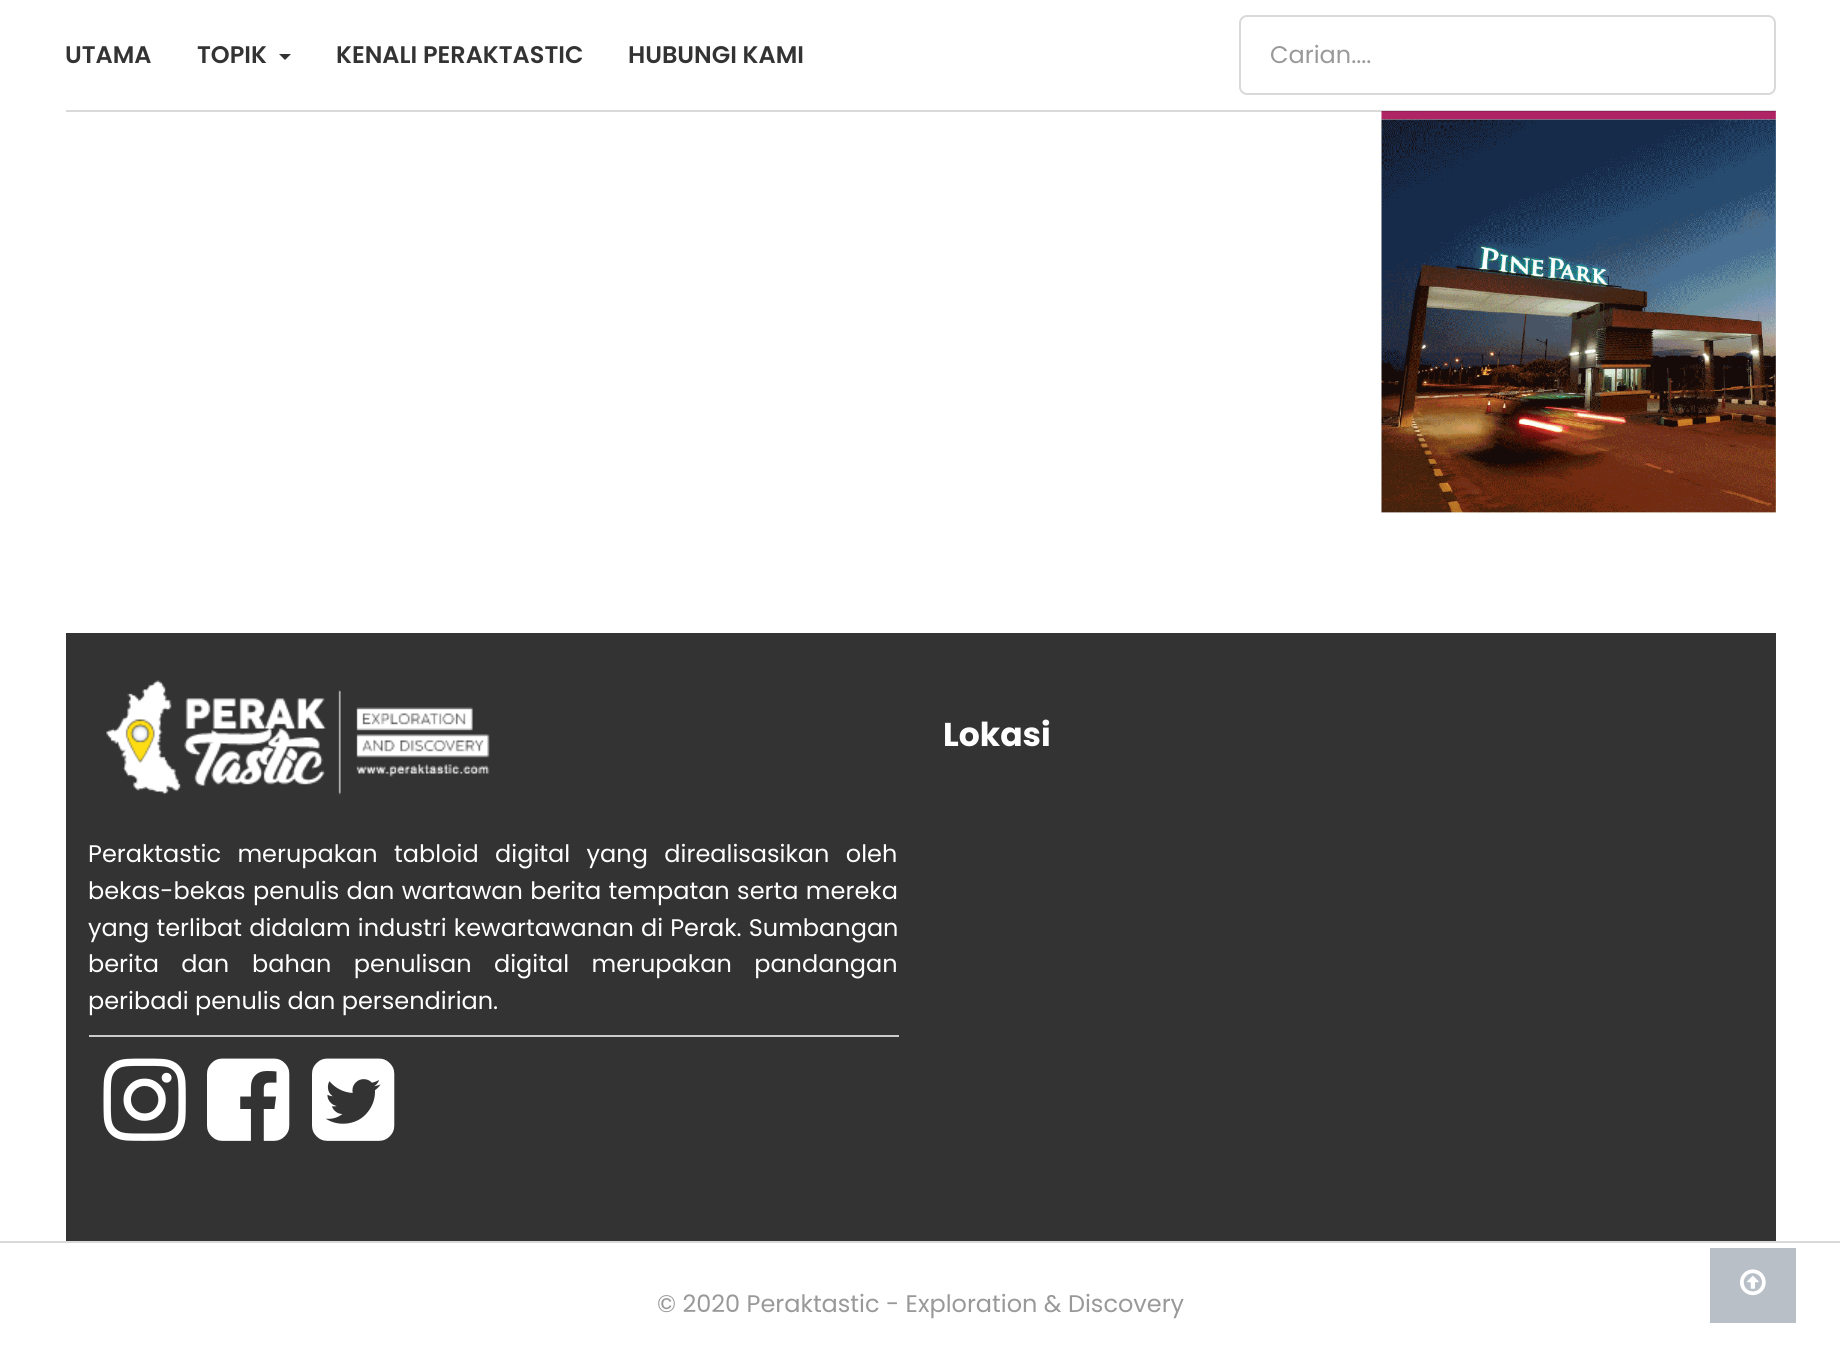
#include <cairo.h>
#include <math.h>
#include <stddef.h>


static void rgb(cairo_t *cr, int r, int g, int b)
{
	cairo_set_source_rgb(cr, r / 255.0, g / 255.0, b / 255.0);
}

static void face(cairo_t *cr, const char *family, double size, int italic, int bold)
{
	cairo_select_font_face(cr, family, italic ? CAIRO_FONT_SLANT_ITALIC : CAIRO_FONT_SLANT_NORMAL,
		bold ? CAIRO_FONT_WEIGHT_BOLD : CAIRO_FONT_WEIGHT_NORMAL);
	cairo_set_font_size(cr, size);
}

static void label(cairo_t *cr, double x, double y, const char *s)
{
	cairo_move_to(cr, x, y);
	cairo_show_text(cr, s);
}

static void tracked(cairo_t *cr, double x, double y, const char *s, double letter, double word)
{
	cairo_move_to(cr, x, y);
	while (*s) {
		char ch[5] = {0};
		int n = 0;
		do ch[n++] = *s++; while ((*s & 0xC0) == 0x80);
		cairo_show_text(cr, ch);
		cairo_rel_move_to(cr, letter + word * (*ch == ' '), 0);
	}
}

static void rect(cairo_t *cr, double x, double y, double w, double h)
{
	cairo_rectangle(cr, x, y, w, h);
	cairo_fill(cr);
}

static void rrect(cairo_t *cr, double x, double y, double w, double h, double r)
{
	cairo_new_sub_path(cr);
	cairo_arc(cr, x + w - r, y + h - r, r, 0, M_PI / 2);
	cairo_arc(cr, x + r, y + h - r, r, M_PI / 2, M_PI);
	cairo_arc(cr, x + r, y + r, r, M_PI, 1.5 * M_PI);
	cairo_arc(cr, x + w - r, y + r, r, 1.5 * M_PI, 2 * M_PI);
	cairo_close_path(cr);
}

static void image(cairo_t *cr, const char *path, double x, double y, double w, double h)
{
	cairo_surface_t *image = cairo_image_surface_create_from_png(path);
	cairo_save(cr);
	cairo_set_source_surface(cr, image, x, y);
	cairo_rectangle(cr, x, y, w, h);
	cairo_fill(cr);
	cairo_restore(cr);
	cairo_surface_destroy(image);
}

static void draw(cairo_t *cr) {
	rgb(cr, 255, 255, 255);
	cairo_paint(cr);
	face(cr, "Poppins SemiBold", 24, 0, 0);
	rgb(cr, 51, 51, 51);
	label(cr, 65, 63, "UTAMA");
	label(cr, 197, 63, "TOPIK");
	cairo_new_path(cr);
	cairo_move_to(cr, 279, 54);
	cairo_line_to(cr, 291, 54);
	cairo_line_to(cr, 285, 60);
	cairo_close_path(cr);
	cairo_fill(cr);
	label(cr, 336, 63, "KENALI PERAKTASTIC");
	label(cr, 628, 63, "HUBUNGI KAMI");
	rrect(cr, 1240, 16, 535, 78, 7);
	rgb(cr, 217, 217, 217);
	cairo_stroke(cr);
	cairo_save(cr);
	cairo_rectangle(cr, 1271, 36, 468, 38);
	cairo_clip(cr);
	face(cr, "Poppins", 24, 0, 0);
	rgb(cr, 153, 153, 153);
	label(cr, 1270, 63, "Carian....");
	cairo_restore(cr);
	image(cr, "image0.png", 1381, 111, 395, 9);
	cairo_set_source_rgba(cr, 0, 0, 0, 0.15);
	rect(cr, 66, 110, 1710, 2);
	image(cr, "image1.png", 1381, 119, 395, 394);
	rgb(cr, 217, 217, 217);
	rect(cr, 0, 1241, 1840, 2);
	rgb(cr, 51, 51, 51);
	rect(cr, 66, 633, 1710, 608);
	face(cr, "Poppins", 33, 0, 1);
	rgb(cr, 255, 255, 255);
	label(cr, 943, 746, "Lokasi");
	image(cr, "image2.png", 106, 680, 384, 115);
	face(cr, "Poppins", 24, 0, 0);
	tracked(cr, 88, 862, "Peraktastic merupakan tabloid digital yang direalisasikan oleh", 0, 10);
	tracked(cr, 88, 899, "bekas-bekas penulis dan wartawan berita tempatan serta mereka", 0, 1);
	tracked(cr, 88, 936, "yang terlibat didalam industri kewartawanan di Perak. Sumbangan", 0, 0.75);
	tracked(cr, 88, 972, "berita dan", 0, 16);
	tracked(cr, 252, 972, "bahan penulisan digital merupakan pandangan", 0, 16);
	label(cr, 88, 1009, "peribadi penulis dan persendirian.");
	rgb(cr, 204, 204, 204);
	rect(cr, 89, 1035, 810, 2);
	image(cr, "image3.png", 103, 1058, 83, 83);
	image(cr, "image4.png", 207, 1058, 83, 83);
	image(cr, "image5.png", 312, 1058, 83, 83);
	rgb(cr, 153, 153, 153);
	label(cr, 657, 1312, "© 2020 Peraktastic - Exploration & Discovery");
	rgb(cr, 184, 191, 199);
	rect(cr, 1710, 1248, 86, 75);
	image(cr, "image6.png", 1740, 1269, 26, 27);
}

int main(void) {
	cairo_surface_t *surface = cairo_image_surface_create(CAIRO_FORMAT_RGB24, 1840, 1367);
	cairo_t *cr = cairo_create(surface);
	cairo_font_options_t *options = cairo_font_options_create();
	cairo_font_options_set_hint_metrics(options, CAIRO_HINT_METRICS_OFF);
	cairo_font_options_set_hint_style(options, CAIRO_HINT_STYLE_NONE);
	cairo_set_font_options(cr, options);
	cairo_set_miter_limit(cr, 4);
	draw(cr);
	cairo_surface_write_to_png(surface, "render.png");
	cairo_font_options_destroy(options);
	cairo_destroy(cr);
	cairo_surface_destroy(surface);
	return 0;
}
